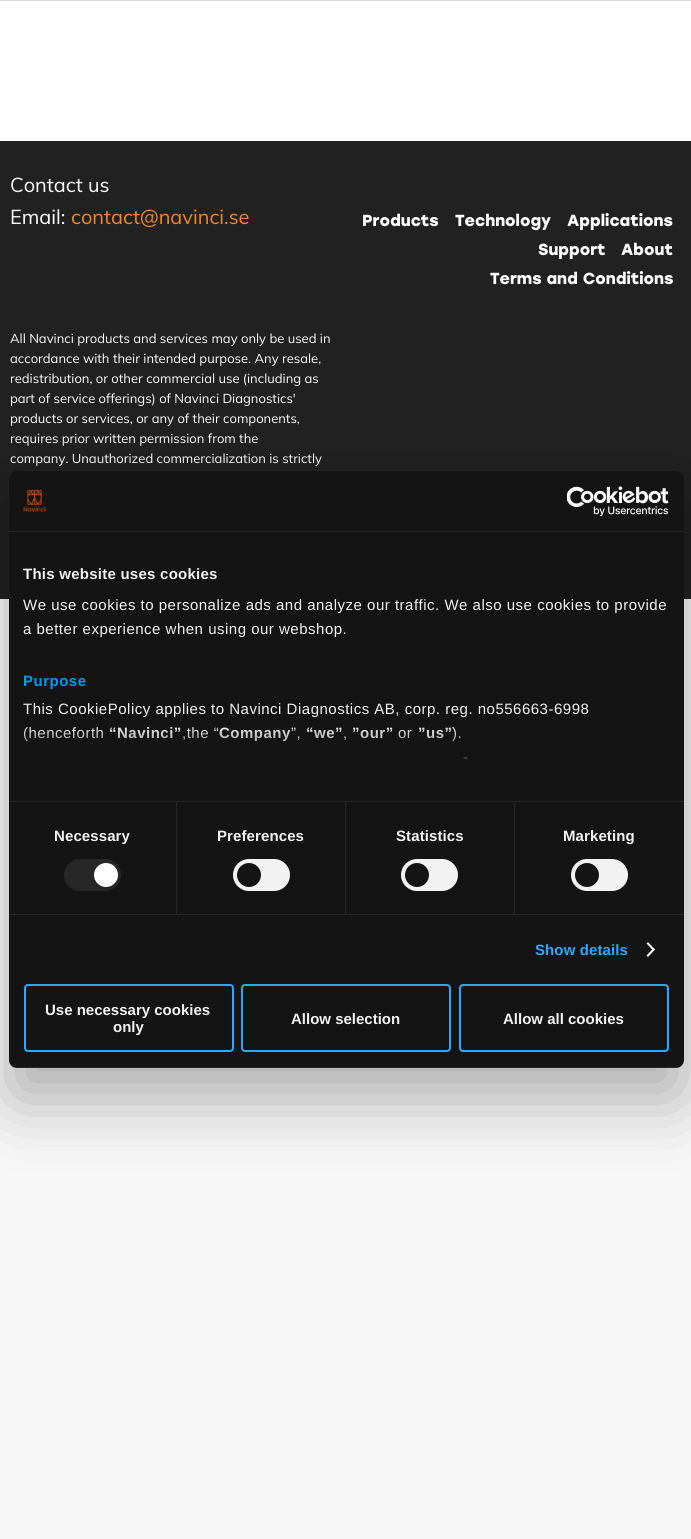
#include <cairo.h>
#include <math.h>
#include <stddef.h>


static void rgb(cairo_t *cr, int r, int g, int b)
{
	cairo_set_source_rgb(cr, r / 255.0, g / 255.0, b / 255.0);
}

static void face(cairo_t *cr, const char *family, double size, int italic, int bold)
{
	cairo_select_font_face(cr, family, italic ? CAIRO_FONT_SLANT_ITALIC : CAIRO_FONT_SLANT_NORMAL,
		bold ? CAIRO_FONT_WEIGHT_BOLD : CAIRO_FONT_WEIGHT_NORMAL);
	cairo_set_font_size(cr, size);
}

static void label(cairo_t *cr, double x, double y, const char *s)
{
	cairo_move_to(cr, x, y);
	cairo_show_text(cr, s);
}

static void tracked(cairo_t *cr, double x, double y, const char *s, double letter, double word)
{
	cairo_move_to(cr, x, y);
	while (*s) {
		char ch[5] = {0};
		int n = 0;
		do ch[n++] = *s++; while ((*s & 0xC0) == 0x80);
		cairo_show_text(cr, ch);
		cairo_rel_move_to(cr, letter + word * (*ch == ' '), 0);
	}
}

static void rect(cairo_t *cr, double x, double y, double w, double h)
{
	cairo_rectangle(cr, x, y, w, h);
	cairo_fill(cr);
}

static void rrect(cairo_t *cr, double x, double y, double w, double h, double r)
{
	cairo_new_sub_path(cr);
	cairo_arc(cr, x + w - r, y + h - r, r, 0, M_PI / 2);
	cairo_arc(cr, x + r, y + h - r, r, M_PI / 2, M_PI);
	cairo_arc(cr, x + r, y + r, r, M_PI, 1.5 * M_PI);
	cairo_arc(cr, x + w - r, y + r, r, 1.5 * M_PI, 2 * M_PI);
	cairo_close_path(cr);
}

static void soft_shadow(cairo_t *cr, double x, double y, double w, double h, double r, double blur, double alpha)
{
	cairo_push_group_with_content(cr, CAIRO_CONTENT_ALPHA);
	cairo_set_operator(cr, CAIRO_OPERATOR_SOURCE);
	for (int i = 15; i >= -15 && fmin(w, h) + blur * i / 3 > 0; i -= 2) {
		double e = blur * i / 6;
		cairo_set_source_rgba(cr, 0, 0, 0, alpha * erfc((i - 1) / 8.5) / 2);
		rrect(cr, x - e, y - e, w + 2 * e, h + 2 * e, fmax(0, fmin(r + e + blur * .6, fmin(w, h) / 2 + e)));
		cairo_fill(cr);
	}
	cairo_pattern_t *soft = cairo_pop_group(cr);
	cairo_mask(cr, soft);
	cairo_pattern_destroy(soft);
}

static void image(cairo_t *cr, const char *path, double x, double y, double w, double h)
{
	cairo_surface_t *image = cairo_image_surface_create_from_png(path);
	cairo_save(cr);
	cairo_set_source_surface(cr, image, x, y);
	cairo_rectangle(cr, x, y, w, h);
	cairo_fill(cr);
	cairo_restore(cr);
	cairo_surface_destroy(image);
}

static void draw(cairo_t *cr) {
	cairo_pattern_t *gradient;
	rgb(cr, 247, 247, 247);
	cairo_paint(cr);
	rgb(cr, 255, 255, 255);
	rect(cr, 0, 1, 691, 140);
	rgb(cr, 219, 219, 219);
	rect(cr, 0, 0, 691, 1);
	rgb(cr, 33, 33, 33);
	rect(cr, 0, 141, 691, 458);
	face(cr, "Muli", 20, 0, 0);
	rgb(cr, 255, 255, 255);
	label(cr, 10, 192, "Contact us");
	label(cr, 10, 224, "Email:");
	rgb(cr, 241, 136, 37);
	label(cr, 71, 224, "contact@navinci.se");
	face(cr, "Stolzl", 16, 0, 1);
	rgb(cr, 255, 255, 255);
	label(cr, 362, 226, "Products");
	label(cr, 455, 226, "Technology");
	label(cr, 567, 226, "Applications");
	label(cr, 538, 255, "Support");
	label(cr, 621, 255, "About");
	label(cr, 490, 284, "Terms and Conditions");
	face(cr, "Mulish", 13, 0, 0);
	label(cr, 10, 343, "All Navinci products and services may only be used in");
	label(cr, 10, 363, "accordance with their intended purpose. Any resale,");
	label(cr, 10, 383, "redistribution, or other commercial use (including as");
	label(cr, 10, 403, "part of service offerings) of Navinci Diagnostics'");
	label(cr, 10, 423, "products or services, or any of their components,");
	label(cr, 10, 443, "requires prior written permission from the");
	label(cr, 10, 463, "company. Unauthorized commercialization is strictly");
	rgb(cr, 0, 0, 0);
	soft_shadow(cr, 9, 503, 675, 597, 8, 34, 0.3);
	rgb(cr, 20, 20, 20);
	rrect(cr, 9, 471, 675, 597, 8);
	cairo_fill(cr);
	rgb(cr, 39, 39, 39);
	rect(cr, 9, 531, 675, 1);
	image(cr, "image0.png", 23, 489, 23, 24);
	image(cr, "image1.png", 567, 486, 102, 30);
	rect(cr, 9, 801, 675, 1);
	face(cr, "Liberation Sans", 15, 0, 1);
	rgb(cr, 242, 242, 242);
	tracked(cr, 23, 579, "This website uses cookies", 0.25, 0);
	face(cr, "Liberation Sans", 15, 0, 0);
	tracked(cr, 23, 610, "We use cookies to personalize ads and analyze our traffic. We also use cookies to provide", 0.5, 0);
	tracked(cr, 23, 634, "a better experience when using our webshop.", 0.5, 0);
	face(cr, "Liberation Sans", 15, 0, 1);
	rgb(cr, 0, 154, 238);
	tracked(cr, 23, 686, "Purpose", 0.5, 0);
	face(cr, "Liberation Sans", 15, 0, 0);
	rgb(cr, 242, 242, 242);
	tracked(cr, 23, 714, "This CookiePolicy applies to Navinci Diagnostics AB, corp. reg. no556663-6998", 0.5, 0);
	tracked(cr, 23, 738, "(henceforth", 0.5, 0);
	face(cr, "Liberation Sans", 15, 0, 1);
	tracked(cr, 109, 738, "“Navinci”", 0.5, 0);
	face(cr, "Liberation Sans", 15, 0, 0);
	tracked(cr, 182, 738, ",the “", 0.5, 0);
	face(cr, "Liberation Sans", 15, 0, 1);
	tracked(cr, 219, 738, "Company", 0.5, 0);
	face(cr, "Liberation Sans", 15, 0, 0);
	tracked(cr, 291, 738, "”,", 0.5, 0);
	face(cr, "Liberation Sans", 15, 0, 1);
	tracked(cr, 306, 738, "“we”", 0.5, 0);
	face(cr, "Liberation Sans", 15, 0, 0);
	tracked(cr, 343, 738, ",", 0.5, 0);
	face(cr, "Liberation Sans", 15, 0, 1);
	tracked(cr, 352, 738, "”our”", 0.5, 0);
	face(cr, "Liberation Sans", 15, 0, 0);
	tracked(cr, 398, 738, "or", 0.5, 0);
	face(cr, "Liberation Sans", 15, 0, 1);
	tracked(cr, 418, 738, "”us”", 0.5, 0);
	face(cr, "Liberation Sans", 15, 0, 0);
	tracked(cr, 452, 738, ").", 0.5, 0);
	tracked(cr, 463, 762, "-", 0.5, 0);
	gradient = cairo_pattern_create_linear(340, 801, 340, 726);
	cairo_pattern_add_color_stop_rgba(gradient, 0, 0.078, 0.078, 0.078, 1);
	cairo_pattern_add_color_stop_rgba(gradient, 0.5, 0.078, 0.078, 0.078, 0.8);
	cairo_pattern_add_color_stop_rgba(gradient, 1, 0.078, 0.078, 0.078, 0);
	cairo_set_source(cr, gradient);
	cairo_pattern_destroy(gradient);
	rect(cr, 24, 727, 444, 32);
	rgb(cr, 39, 39, 39);
	rect(cr, 9, 914, 675, 1);
	rect(cr, 176, 802, 1, 112);
	face(cr, "Liberation Sans", 15, 0, 1);
	rgb(cr, 242, 242, 242);
	tracked(cr, 54, 841, "Necessary", 0.1, 0);
	rgb(cr, 39, 39, 39);
	rrect(cr, 64, 859, 57, 32, 16);
	cairo_fill(cr);
	rgb(cr, 255, 255, 255);
	cairo_arc(cr, 106, 875, 12, 0, 2 * M_PI);
	cairo_fill(cr);
	rgb(cr, 39, 39, 39);
	rect(cr, 345, 802, 1, 112);
	rgb(cr, 242, 242, 242);
	tracked(cr, 217, 841, "Preferences", 0.1, 0);
	rrect(cr, 233, 859, 57, 32, 16);
	cairo_fill(cr);
	rgb(cr, 20, 20, 20);
	cairo_arc(cr, 249, 875, 12, 0, 2 * M_PI);
	cairo_fill(cr);
	rgb(cr, 39, 39, 39);
	rect(cr, 514, 802, 1, 112);
	rgb(cr, 242, 242, 242);
	tracked(cr, 396, 841, "Statistics", 0.1, 0);
	rrect(cr, 401, 859, 57, 32, 16);
	cairo_fill(cr);
	rgb(cr, 20, 20, 20);
	cairo_arc(cr, 417, 875, 12, 0, 2 * M_PI);
	cairo_fill(cr);
	rgb(cr, 242, 242, 242);
	tracked(cr, 563, 841, "Marketing", 0.1, 0);
	rrect(cr, 571, 859, 57, 32, 16);
	cairo_fill(cr);
	rgb(cr, 20, 20, 20);
	cairo_arc(cr, 587, 875, 12, 0, 2 * M_PI);
	cairo_fill(cr);
	rgb(cr, 46, 167, 255);
	tracked(cr, 535, 955, "Show details", 0.1, 0);
	rgb(cr, 242, 242, 242);
	cairo_new_path(cr);
	cairo_move_to(cr, 648, 942);
	cairo_line_to(cr, 655, 949.5);
	cairo_line_to(cr, 653.5, 951);
	cairo_line_to(cr, 646.5, 943.5);
	cairo_close_path(cr);
	cairo_fill(cr);
	cairo_new_path(cr);
	cairo_move_to(cr, 653.5, 948);
	cairo_line_to(cr, 655, 949.5);
	cairo_line_to(cr, 648, 957);
	cairo_line_to(cr, 646.5, 955.5);
	cairo_close_path(cr);
	cairo_fill(cr);
	cairo_save(cr);
	rrect(cr, 9, 471, 675, 597, 8);
	cairo_clip(cr);
	cairo_set_source_rgba(cr, 1, 1, 1, 0.08);
	rect(cr, 9, 1067, 675, 1);
	cairo_restore(cr);
	rrect(cr, 25, 985, 208, 66, 3);
	rgb(cr, 46, 167, 255);
	cairo_stroke(cr);
	rgb(cr, 242, 242, 242);
	label(cr, 45, 1015, "Use necessary cookies");
	label(cr, 113, 1032, "only");
	rrect(cr, 242, 985, 208, 66, 3);
	rgb(cr, 46, 167, 255);
	cairo_stroke(cr);
	rgb(cr, 242, 242, 242);
	label(cr, 291, 1024, "Allow selection");
	rrect(cr, 460, 985, 208, 66, 3);
	rgb(cr, 46, 167, 255);
	cairo_stroke(cr);
	rgb(cr, 242, 242, 242);
	label(cr, 503, 1024, "Allow all cookies");
}

int main(void) {
	cairo_surface_t *surface = cairo_image_surface_create(CAIRO_FORMAT_RGB24, 691, 1539);
	cairo_t *cr = cairo_create(surface);
	cairo_font_options_t *options = cairo_font_options_create();
	cairo_font_options_set_hint_metrics(options, CAIRO_HINT_METRICS_OFF);
	cairo_font_options_set_hint_style(options, CAIRO_HINT_STYLE_NONE);
	cairo_set_font_options(cr, options);
	cairo_set_miter_limit(cr, 4);
	draw(cr);
	cairo_surface_write_to_png(surface, "render.png");
	cairo_font_options_destroy(options);
	cairo_destroy(cr);
	cairo_surface_destroy(surface);
	return 0;
}
